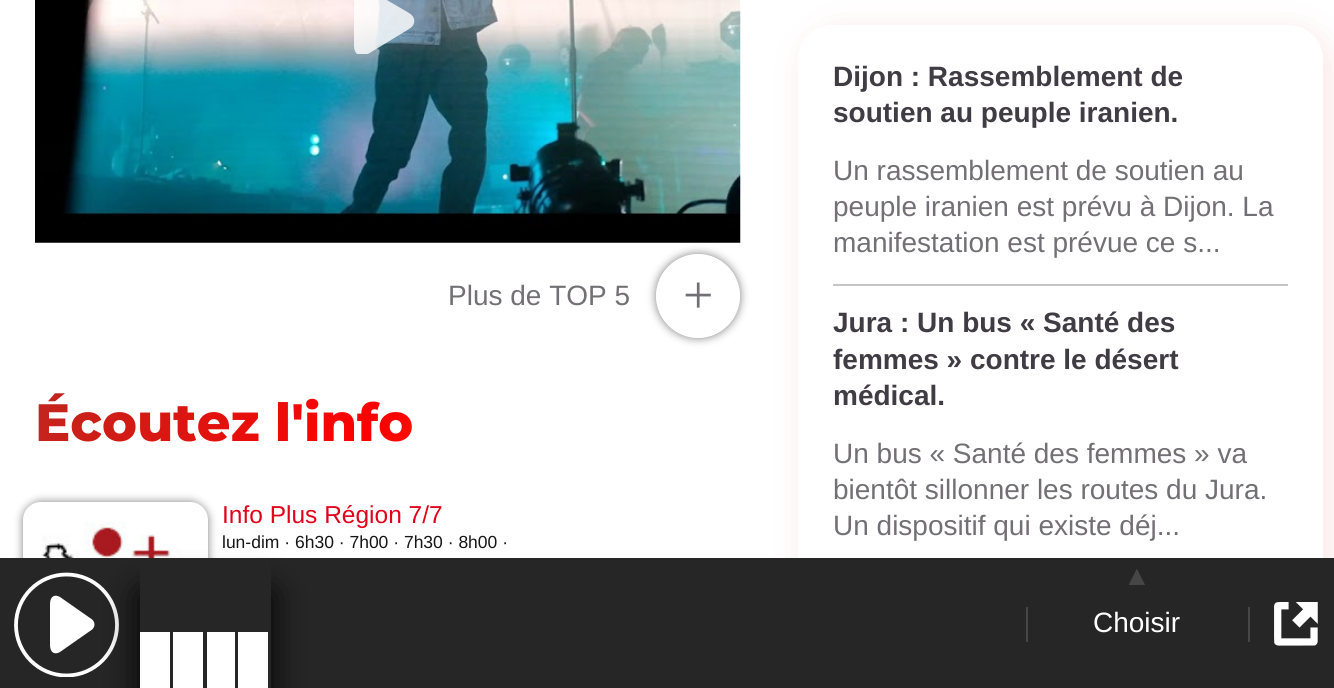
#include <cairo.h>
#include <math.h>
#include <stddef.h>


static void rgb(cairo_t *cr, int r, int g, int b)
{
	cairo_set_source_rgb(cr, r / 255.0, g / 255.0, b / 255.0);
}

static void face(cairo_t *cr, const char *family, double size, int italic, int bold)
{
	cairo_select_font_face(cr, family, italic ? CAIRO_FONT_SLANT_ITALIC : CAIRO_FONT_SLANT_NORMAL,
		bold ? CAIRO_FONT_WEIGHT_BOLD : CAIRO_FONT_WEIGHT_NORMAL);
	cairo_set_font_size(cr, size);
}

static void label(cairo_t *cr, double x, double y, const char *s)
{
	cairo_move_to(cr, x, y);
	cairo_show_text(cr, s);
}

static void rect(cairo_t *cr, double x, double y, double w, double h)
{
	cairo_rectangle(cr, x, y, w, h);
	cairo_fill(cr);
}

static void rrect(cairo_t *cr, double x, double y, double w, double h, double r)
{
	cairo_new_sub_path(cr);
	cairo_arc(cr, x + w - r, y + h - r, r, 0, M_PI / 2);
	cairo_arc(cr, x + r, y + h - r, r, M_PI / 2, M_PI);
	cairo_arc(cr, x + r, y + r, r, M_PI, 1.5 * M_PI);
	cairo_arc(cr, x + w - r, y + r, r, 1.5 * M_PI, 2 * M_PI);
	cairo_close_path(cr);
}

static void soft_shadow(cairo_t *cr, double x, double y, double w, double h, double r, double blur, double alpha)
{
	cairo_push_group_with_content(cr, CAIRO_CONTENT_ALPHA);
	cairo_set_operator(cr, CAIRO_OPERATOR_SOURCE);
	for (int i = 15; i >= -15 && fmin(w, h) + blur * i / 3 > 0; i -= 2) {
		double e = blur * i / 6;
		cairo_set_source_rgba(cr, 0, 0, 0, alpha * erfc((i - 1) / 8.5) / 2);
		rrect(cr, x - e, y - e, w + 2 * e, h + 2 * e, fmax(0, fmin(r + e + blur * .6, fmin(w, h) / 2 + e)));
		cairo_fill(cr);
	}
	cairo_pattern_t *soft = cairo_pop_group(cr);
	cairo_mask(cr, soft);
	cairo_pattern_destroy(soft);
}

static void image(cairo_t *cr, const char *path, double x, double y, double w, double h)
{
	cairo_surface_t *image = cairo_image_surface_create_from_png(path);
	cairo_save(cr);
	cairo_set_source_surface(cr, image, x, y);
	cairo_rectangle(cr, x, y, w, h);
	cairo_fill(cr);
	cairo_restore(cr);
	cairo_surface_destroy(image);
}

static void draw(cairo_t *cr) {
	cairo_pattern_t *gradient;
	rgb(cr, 255, 255, 255);
	cairo_paint(cr);
	cairo_save(cr);
	cairo_set_fill_rule(cr, CAIRO_FILL_RULE_EVEN_ODD);
	cairo_new_path(cr);
	cairo_move_to(cr, 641, 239);
	cairo_line_to(cr, 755, 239);
	cairo_line_to(cr, 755, 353);
	cairo_line_to(cr, 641, 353);
	cairo_close_path(cr);
	cairo_move_to(cr, 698, 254);
	cairo_curve_to(cr, 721, 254, 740, 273, 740, 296);
	cairo_curve_to(cr, 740, 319, 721, 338, 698, 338);
	cairo_curve_to(cr, 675, 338, 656, 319, 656, 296);
	cairo_curve_to(cr, 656, 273, 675, 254, 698, 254);
	cairo_close_path(cr);
	cairo_clip(cr);
	rgb(cr, 129, 129, 129);
	soft_shadow(cr, 656, 254, 84, 84, 42, 4.5, 1);
	cairo_restore(cr);
	image(cr, "image0.png", 35, 0, 706, 243);
	cairo_save(cr);
	cairo_rectangle(cr, 354, 0, 68, 54);
	cairo_clip(cr);
	cairo_set_source_rgba(cr, 1, 1, 1, 0.8);
	cairo_new_path(cr);
	cairo_move_to(cr, 368, 54);
	cairo_curve_to(cr, 360, 58, 354, 54, 354, 46);
	cairo_line_to(cr, 354, -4);
	cairo_curve_to(cr, 354, -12, 360, -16, 368, -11);
	cairo_line_to(cr, 409, 13);
	cairo_curve_to(cr, 416, 17, 416, 25, 409, 29);
	cairo_close_path(cr);
	cairo_fill(cr);
	cairo_restore(cr);
	face(cr, "Liberation Sans", 28, 0, 0);
	rgb(cr, 114, 112, 116);
	label(cr, 448, 305, "Plus de TOP 5");
	face(cr, "Liberation Serif", 54, 0, 0);
	label(cr, 683, 313, "+");
	face(cr, "Montserrat ExtraBold", 52.5, 0, 0);
	gradient = cairo_pattern_create_linear(111, 264, 664, 583);
	cairo_pattern_add_color_stop_rgba(gradient, 0, 0.753, 0.149, 0.118, 1);
	cairo_pattern_add_color_stop_rgba(gradient, 0.5, 1, 0, 0, 1);
	cairo_pattern_add_color_stop_rgba(gradient, 1, 0.949, 0.694, 0.18, 1);
	cairo_set_source(cr, gradient);
	cairo_pattern_destroy(gradient);
	label(cr, 35, 441, "Écoutez l'info");
	rgb(cr, 129, 129, 129);
	soft_shadow(cr, 23, 502, 185, 186, 18, 4.5, 1);
	rgb(cr, 255, 255, 255);
	rrect(cr, 23, 502, 185, 186, 18);
	cairo_fill(cr);
	image(cr, "image1.png", 32, 521, 171, 37);
	face(cr, "Liberation Sans", 24.5, 0, 0);
	rgb(cr, 226, 0, 26);
	label(cr, 222, 523, "Info Plus Région 7/7");
	face(cr, "Liberation Sans", 17.5, 0, 0);
	rgb(cr, 22, 22, 22);
	label(cr, 222, 548, "lun-dim · 6h30 · 7h00 · 7h30 · 8h00 ·");
	cairo_save(cr);
	cairo_set_fill_rule(cr, CAIRO_FILL_RULE_EVEN_ODD);
	cairo_new_path(cr);
	cairo_move_to(cr, 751, 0);
	cairo_line_to(cr, 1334, 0);
	cairo_line_to(cr, 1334, 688);
	cairo_line_to(cr, 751, 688);
	cairo_close_path(cr);
	cairo_move_to(cr, 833, 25);
	cairo_line_to(cr, 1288, 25);
	cairo_curve_to(cr, 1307.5, 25, 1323, 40.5, 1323, 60);
	cairo_line_to(cr, 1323, 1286);
	cairo_curve_to(cr, 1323, 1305.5, 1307.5, 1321, 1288, 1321);
	cairo_line_to(cr, 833, 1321);
	cairo_curve_to(cr, 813.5, 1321, 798, 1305.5, 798, 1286);
	cairo_line_to(cr, 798, 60);
	cairo_curve_to(cr, 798, 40.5, 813.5, 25, 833, 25);
	cairo_close_path(cr);
	cairo_clip(cr);
	rgb(cr, 218, 37, 30);
	soft_shadow(cr, 805, 32, 525, 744, 35, 17.5, 0.12);
	cairo_restore(cr);
	rgb(cr, 198, 196, 196);
	rect(cr, 833, 284, 455, 2);
	face(cr, "Liberation Sans", 28, 0, 1);
	rgb(cr, 63, 60, 68);
	label(cr, 833, 86, "Dijon : Rassemblement de");
	label(cr, 833, 122, "soutien au peuple iranien.");
	face(cr, "Liberation Sans", 28, 0, 0);
	rgb(cr, 114, 112, 116);
	label(cr, 833, 180, "Un rassemblement de soutien au");
	label(cr, 833, 216, "peuple iranien est prévu à Dijon. La");
	label(cr, 833, 252, "manifestation est prévue ce s...");
	face(cr, "Liberation Sans", 28, 0, 1);
	rgb(cr, 63, 60, 68);
	label(cr, 833, 332, "Jura : Un bus « Santé des");
	label(cr, 833, 369, "femmes » contre le désert");
	label(cr, 833, 405, "médical.");
	face(cr, "Liberation Sans", 28, 0, 0);
	rgb(cr, 114, 112, 116);
	label(cr, 833, 463, "Un bus « Santé des femmes » va");
	label(cr, 833, 499, "bientôt sillonner les routes du Jura.");
	label(cr, 833, 535, "Un dispositif qui existe déj...");
	rgb(cr, 38, 38, 38);
	rect(cr, 0, 558, 1334, 130);
	rgb(cr, 255, 255, 255);
	cairo_new_path(cr);
	cairo_move_to(cr, 60, 652);
	cairo_curve_to(cr, 55, 655, 50, 653, 50, 645);
	cairo_line_to(cr, 50, 604);
	cairo_curve_to(cr, 50, 596, 55, 594, 60, 597);
	cairo_line_to(cr, 90, 618);
	cairo_curve_to(cr, 96, 621, 96, 628, 90, 631);
	cairo_close_path(cr);
	cairo_fill(cr);
	cairo_save(cr);
	cairo_rectangle(cr, 14, 572, 105, 105);
	cairo_clip(cr);
	cairo_arc(cr, 66.5, 625, 50.5, 0, 2 * M_PI);
	cairo_set_line_width(cr, 3.8);
	cairo_stroke(cr);
	cairo_restore(cr);
	cairo_save(cr);
	cairo_set_fill_rule(cr, CAIRO_FILL_RULE_EVEN_ODD);
	cairo_new_path(cr);
	cairo_move_to(cr, 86, 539);
	cairo_line_to(cr, 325, 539);
	cairo_line_to(cr, 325, 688);
	cairo_line_to(cr, 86, 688);
	cairo_close_path(cr);
	cairo_move_to(cr, 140, 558);
	cairo_line_to(cr, 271, 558);
	cairo_line_to(cr, 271, 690);
	cairo_line_to(cr, 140, 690);
	cairo_close_path(cr);
	cairo_clip(cr);
	rgb(cr, 0, 0, 0);
	soft_shadow(cr, 140, 593, 131, 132, 0, 17.5, 1);
	cairo_restore(cr);
	rect(cr, 140, 632, 30, 56);
	rect(cr, 173, 632, 30, 56);
	rect(cr, 207, 632, 28, 56);
	rect(cr, 238, 632, 30, 56);
	face(cr, "Liberation Sans", 28, 1, 0);
	rgb(cr, 70, 70, 70);
	label(cr, 1123, 585, "▲");
	rect(cr, 1248, 607, 2, 35);
	rect(cr, 1026, 607, 2, 35);
	face(cr, "Liberation Sans", 28, 0, 0);
	rgb(cr, 255, 255, 255);
	label(cr, 1093, 632, "Choisir");
	image(cr, "image2.png", 1274, 602, 44, 44);
}

int main(void) {
	cairo_surface_t *surface = cairo_image_surface_create(CAIRO_FORMAT_RGB24, 1334, 688);
	cairo_t *cr = cairo_create(surface);
	cairo_font_options_t *options = cairo_font_options_create();
	cairo_font_options_set_hint_metrics(options, CAIRO_HINT_METRICS_OFF);
	cairo_font_options_set_hint_style(options, CAIRO_HINT_STYLE_NONE);
	cairo_set_font_options(cr, options);
	cairo_set_miter_limit(cr, 4);
	draw(cr);
	cairo_surface_write_to_png(surface, "render.png");
	cairo_font_options_destroy(options);
	cairo_destroy(cr);
	cairo_surface_destroy(surface);
	return 0;
}
